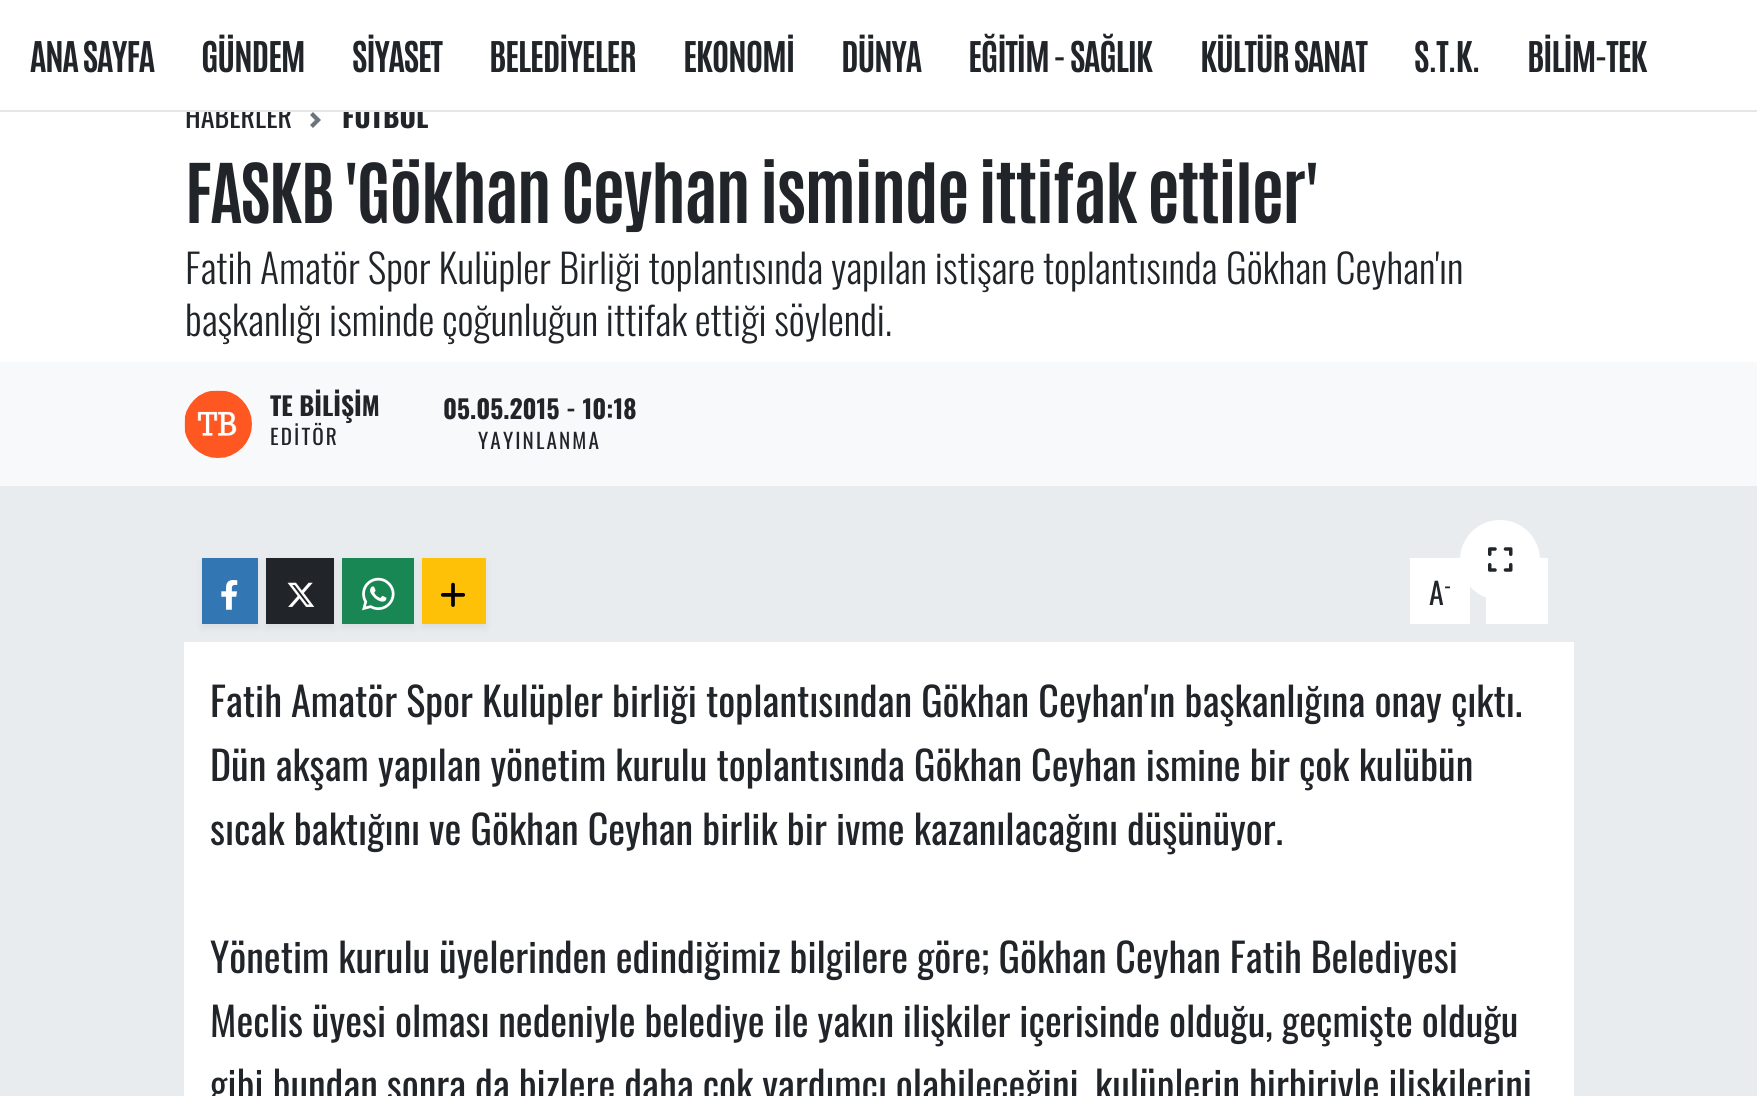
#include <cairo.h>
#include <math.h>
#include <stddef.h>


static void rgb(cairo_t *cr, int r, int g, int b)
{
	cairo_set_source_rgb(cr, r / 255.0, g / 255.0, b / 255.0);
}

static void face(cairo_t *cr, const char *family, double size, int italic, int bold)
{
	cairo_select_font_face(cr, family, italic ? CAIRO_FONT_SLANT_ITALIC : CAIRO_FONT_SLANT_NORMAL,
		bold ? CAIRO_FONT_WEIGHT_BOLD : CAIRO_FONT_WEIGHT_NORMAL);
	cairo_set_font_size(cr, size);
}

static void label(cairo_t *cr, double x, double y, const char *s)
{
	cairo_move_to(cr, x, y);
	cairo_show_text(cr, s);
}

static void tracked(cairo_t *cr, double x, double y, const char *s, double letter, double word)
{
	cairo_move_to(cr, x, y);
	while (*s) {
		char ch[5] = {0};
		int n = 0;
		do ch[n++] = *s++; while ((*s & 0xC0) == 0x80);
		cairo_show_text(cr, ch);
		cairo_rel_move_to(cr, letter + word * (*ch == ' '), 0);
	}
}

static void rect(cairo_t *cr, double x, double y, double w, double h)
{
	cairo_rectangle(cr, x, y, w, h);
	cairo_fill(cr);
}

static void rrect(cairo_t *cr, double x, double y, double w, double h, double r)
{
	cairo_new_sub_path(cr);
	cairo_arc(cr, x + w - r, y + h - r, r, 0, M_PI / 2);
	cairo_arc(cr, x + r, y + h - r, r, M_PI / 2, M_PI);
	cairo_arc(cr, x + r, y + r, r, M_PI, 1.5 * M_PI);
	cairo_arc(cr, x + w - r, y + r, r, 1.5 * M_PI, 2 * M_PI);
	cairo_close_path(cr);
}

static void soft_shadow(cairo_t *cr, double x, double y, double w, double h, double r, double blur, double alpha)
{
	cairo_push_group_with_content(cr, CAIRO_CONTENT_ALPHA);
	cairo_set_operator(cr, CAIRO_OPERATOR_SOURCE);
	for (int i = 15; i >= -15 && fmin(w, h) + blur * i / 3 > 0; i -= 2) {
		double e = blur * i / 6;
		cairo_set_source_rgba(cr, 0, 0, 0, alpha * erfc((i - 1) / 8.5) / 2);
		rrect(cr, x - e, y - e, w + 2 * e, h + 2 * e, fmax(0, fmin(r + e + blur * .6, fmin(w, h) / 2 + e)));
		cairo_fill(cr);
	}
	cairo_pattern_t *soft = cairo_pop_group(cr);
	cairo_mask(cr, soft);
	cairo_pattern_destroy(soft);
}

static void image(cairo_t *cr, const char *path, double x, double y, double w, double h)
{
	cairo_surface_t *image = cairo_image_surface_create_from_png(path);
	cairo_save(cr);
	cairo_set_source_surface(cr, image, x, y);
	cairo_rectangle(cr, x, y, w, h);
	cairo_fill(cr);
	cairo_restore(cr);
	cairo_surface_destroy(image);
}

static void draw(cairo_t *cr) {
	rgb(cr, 233, 236, 239);
	cairo_paint(cr);
	rgb(cr, 255, 255, 255);
	rect(cr, 0, 112, 1757, 250);
	face(cr, "Oswald", 28, 0, 0);
	rgb(cr, 33, 37, 41);
	label(cr, 185, 128, "HABERLER");
	face(cr, "Oswald", 28, 0, 1);
	label(cr, 342, 128, "FUTBOL");
	rgb(cr, 255, 255, 255);
	rect(cr, 0, 0, 1757, 110);
	rgb(cr, 230, 230, 230);
	rect(cr, 0, 110, 1757, 2);
	face(cr, "Antonio", 36, 0, 1);
	rgb(cr, 33, 37, 41);
	tracked(cr, 30, 72, "ANA SAYFA", -1.25, 0);
	tracked(cr, 201, 72, "GÜNDEM", -1.25, 0);
	tracked(cr, 352, 72, "SİYASET", -1.25, 0);
	tracked(cr, 489, 72, "BELEDİYELER", -1.25, 0);
	tracked(cr, 683, 72, "EKONOMİ", -1.25, 0);
	tracked(cr, 841, 72, "DÜNYA", -1.25, 0);
	tracked(cr, 968, 72, "EĞİTİM - SAĞLIK", -1.25, 0);
	tracked(cr, 1200, 72, "KÜLTÜR SANAT", -1.25, 0);
	tracked(cr, 1414, 72, "S.T.K.", -1.25, 0);
	tracked(cr, 1527, 72, "BİLİM-TEK", -1.25, 0);
	image(cr, "image0.png", 310, 112, 11, 16);
	face(cr, "Antonio", 70, 0, 1);
	tracked(cr, 185, 223, "FASKB 'Gökhan Ceyhan isminde ittifak ettiler'", -1.6, 0);
	face(cr, "Oswald Light", 40, 0, 0);
	tracked(cr, 185, 284, "Fatih Amatör Spor Kulüpler Birliği toplantısında yapılan istişare toplantısında", 0, -0.25);
	label(cr, 1226, 284, "Gökhan Ceyhan'ın");
	label(cr, 185, 336, "başkanlığı");
	tracked(cr, 329, 336, "isminde çoğunluğun ittifak ettiği söylendi.", 0, -0.5);
	rgb(cr, 248, 249, 250);
	rect(cr, 0, 362, 1757, 124);
	image(cr, "image1.png", 184, 390, 68, 68);
	face(cr, "Oswald", 25.5, 0, 1);
	rgb(cr, 33, 37, 41);
	label(cr, 270, 416, "TE BİLİŞİM");
	face(cr, "Oswald", 21.25, 0, 0);
	tracked(cr, 270, 445, "EDİTÖR", 2.1, 0);
	face(cr, "Oswald", 25.5, 0, 1);
	label(cr, 443, 419, "05.05.2015 - 10:18");
	face(cr, "Oswald", 21.25, 0, 0);
	tracked(cr, 478, 449, "YAYINLANMA", 2.1, 0);
	rgb(cr, 0, 0, 0);
	soft_shadow(cr, 202, 562, 56, 66, 0, 4, 0.07);
	rgb(cr, 50, 118, 179);
	rect(cr, 202, 558, 56, 66);
	image(cr, "image2.png", 221, 580, 17, 30);
	rgb(cr, 0, 0, 0);
	soft_shadow(cr, 266, 562, 68, 66, 0, 4, 0.07);
	rgb(cr, 33, 37, 41);
	rect(cr, 266, 558, 68, 66);
	image(cr, "image3.png", 287, 582, 28, 25);
	rgb(cr, 0, 0, 0);
	soft_shadow(cr, 342, 562, 72, 66, 0, 4, 0.07);
	rgb(cr, 25, 135, 84);
	rect(cr, 342, 558, 72, 66);
	image(cr, "image4.png", 362, 577, 33, 34);
	rgb(cr, 0, 0, 0);
	soft_shadow(cr, 422, 562, 64, 66, 0, 4, 0.07);
	rgb(cr, 255, 193, 7);
	rect(cr, 422, 558, 64, 66);
	image(cr, "image5.png", 440, 582, 26, 25);
	rgb(cr, 255, 255, 255);
	rect(cr, 1410, 558, 60, 66);
	face(cr, "Oswald", 30, 0, 0);
	rgb(cr, 33, 37, 41);
	label(cr, 1429, 605, "A");
	face(cr, "Oswald", 22, 0, 0);
	label(cr, 1444, 594, "-");
	rgb(cr, 255, 255, 255);
	rect(cr, 1486, 558, 62, 66);
	cairo_new_path(cr);
	cairo_arc(cr, 1500, 560, 40, 0, 2 * M_PI);
	cairo_fill(cr);
	image(cr, "image6.png", 1488, 547, 25, 25);
	rect(cr, 184, 642, 1390, 454);
	face(cr, "Oswald", 40, 0, 0);
	rgb(cr, 33, 37, 41);
	label(cr, 210, 717, "Fatih Amatör Spor Kulüpler birliği toplantısından Gökhan Ceyhan'ın başkanlığına onay çıktı.");
	label(cr, 210, 781, "Dün akşam yapılan yönetim kurulu toplantısında Gökhan Ceyhan ismine bir çok kulübün");
	label(cr, 210, 845, "sıcak baktığını ve Gökhan Ceyhan birlik bir ivme kazanılacağını düşünüyor.");
	tracked(cr, 210, 973, "Yönetim kurulu üyelerinden edindiğimiz bilgilere göre; Gökhan Ceyhan Fatih Belediyesi", 0, -0.25);
	tracked(cr, 210, 1037, "Meclis üyesi olması nedeniyle belediye ile yakın ilişkiler içerisinde olduğu, geçmişte olduğu", 0, -0.25);
	tracked(cr, 210, 1101, "gibi bundan sonra da bizlere daha çok yardımcı olabileceğini, kulüplerin birbiriyle ilişkilerini", 0, -0.25);
}

int main(void) {
	cairo_surface_t *surface = cairo_image_surface_create(CAIRO_FORMAT_RGB24, 1757, 1096);
	cairo_t *cr = cairo_create(surface);
	cairo_font_options_t *options = cairo_font_options_create();
	cairo_font_options_set_hint_metrics(options, CAIRO_HINT_METRICS_OFF);
	cairo_font_options_set_hint_style(options, CAIRO_HINT_STYLE_NONE);
	cairo_set_font_options(cr, options);
	cairo_set_miter_limit(cr, 4);
	draw(cr);
	cairo_surface_write_to_png(surface, "render.png");
	cairo_font_options_destroy(options);
	cairo_destroy(cr);
	cairo_surface_destroy(surface);
	return 0;
}
